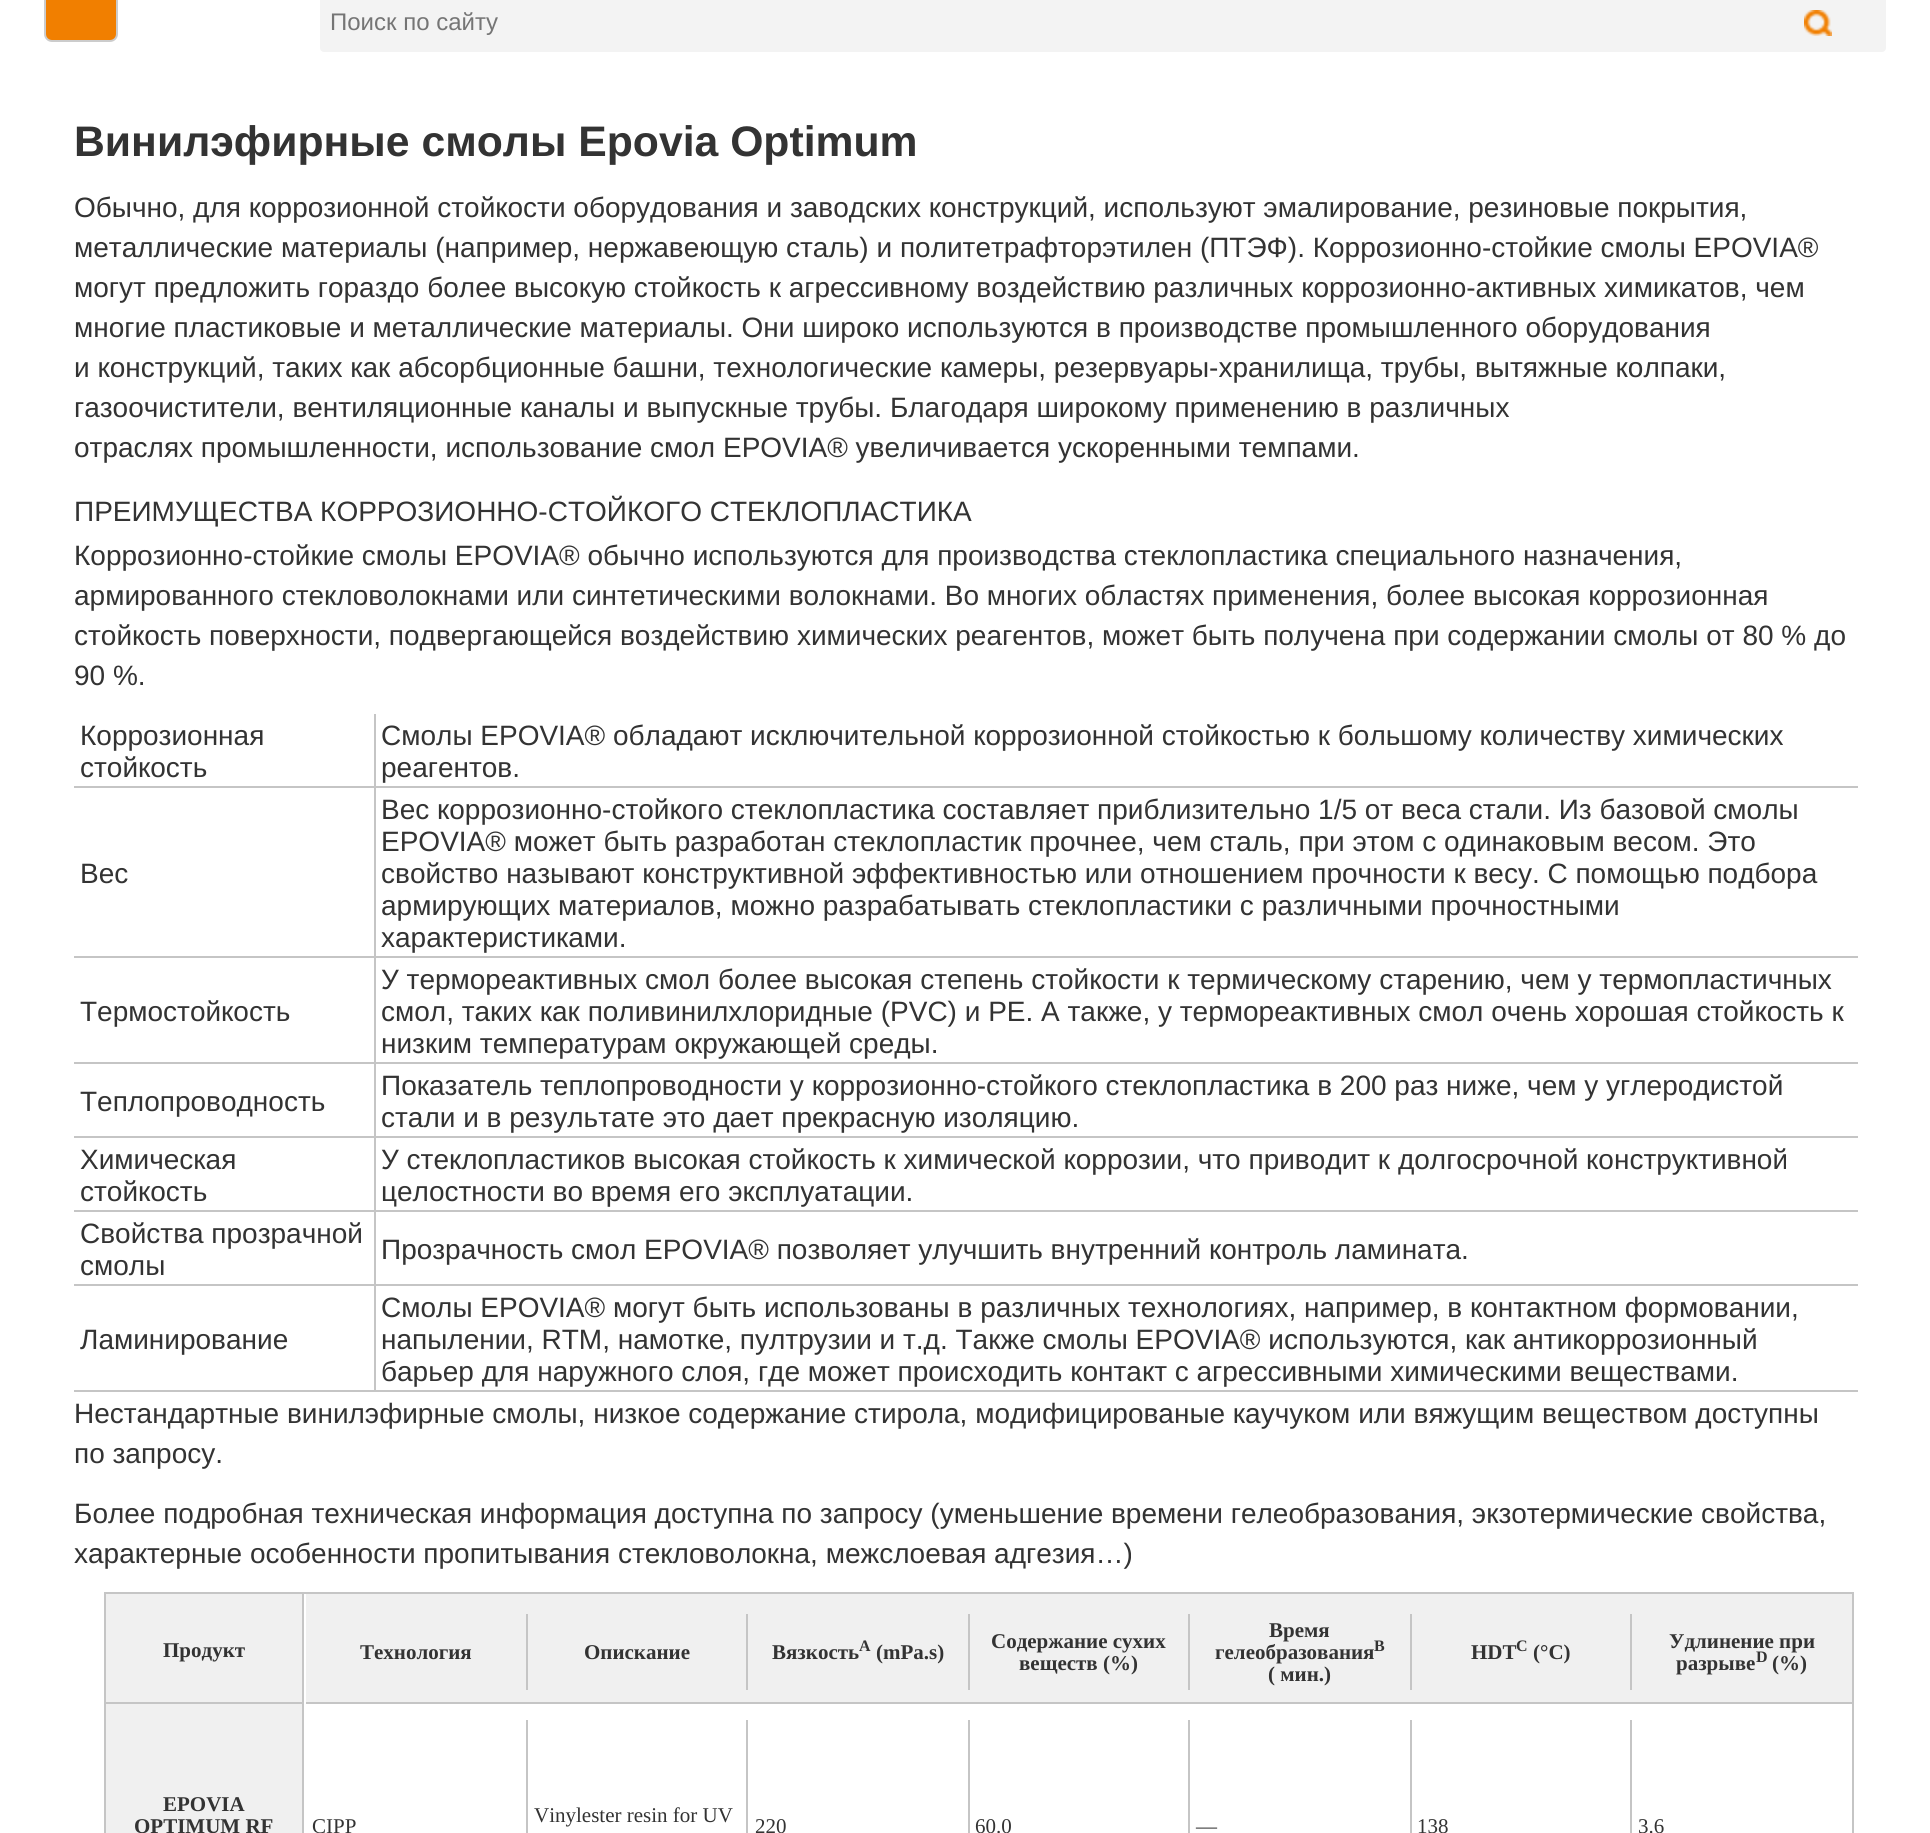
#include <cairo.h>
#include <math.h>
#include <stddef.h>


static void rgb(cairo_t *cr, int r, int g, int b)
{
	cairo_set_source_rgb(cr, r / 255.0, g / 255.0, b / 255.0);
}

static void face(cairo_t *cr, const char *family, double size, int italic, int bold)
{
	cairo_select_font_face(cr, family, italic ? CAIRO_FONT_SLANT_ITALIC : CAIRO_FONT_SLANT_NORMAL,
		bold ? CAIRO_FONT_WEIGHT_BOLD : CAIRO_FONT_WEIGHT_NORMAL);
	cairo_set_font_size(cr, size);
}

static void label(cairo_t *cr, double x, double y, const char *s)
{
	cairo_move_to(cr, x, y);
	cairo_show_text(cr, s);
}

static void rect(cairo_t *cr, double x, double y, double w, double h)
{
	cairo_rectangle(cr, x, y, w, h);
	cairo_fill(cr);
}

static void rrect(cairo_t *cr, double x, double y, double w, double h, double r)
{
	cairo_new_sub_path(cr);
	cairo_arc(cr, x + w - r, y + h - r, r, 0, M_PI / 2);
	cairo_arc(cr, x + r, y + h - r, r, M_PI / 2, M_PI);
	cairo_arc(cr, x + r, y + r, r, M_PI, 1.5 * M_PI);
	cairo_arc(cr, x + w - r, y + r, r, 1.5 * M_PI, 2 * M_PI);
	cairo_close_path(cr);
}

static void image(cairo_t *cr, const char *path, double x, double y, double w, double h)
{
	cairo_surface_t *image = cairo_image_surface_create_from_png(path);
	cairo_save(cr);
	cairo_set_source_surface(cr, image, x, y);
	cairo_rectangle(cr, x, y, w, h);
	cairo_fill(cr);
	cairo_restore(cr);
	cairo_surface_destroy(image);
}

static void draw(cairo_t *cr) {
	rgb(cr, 255, 255, 255);
	cairo_paint(cr);
	rgb(cr, 241, 127, 0);
	rrect(cr, 45, -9, 72, 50, 7);
	cairo_fill_preserve(cr);
	rgb(cr, 204, 204, 204);
	cairo_stroke(cr);
	rgb(cr, 243, 243, 243);
	rrect(cr, 320, -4, 1566, 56, 4);
	cairo_fill(cr);
	face(cr, "Liberation Sans", 24, 0, 0);
	rgb(cr, 117, 117, 117);
	label(cr, 330, 30, "Поиск по сайту");
	image(cr, "image0.png", 1804, 10, 28, 26);
	face(cr, "Liberation Sans", 42.7, 0, 1);
	rgb(cr, 51, 51, 51);
	label(cr, 74, 156, "Винилэфирные смолы Epovia Optimum");
	face(cr, "Liberation Sans", 28, 0, 0);
	label(cr, 74, 217, "Обычно, для коррозионной стойкости оборудования и заводских конструкций, используют эмалирование, резиновые покрытия,");
	label(cr, 74, 257, "металлические материалы (например, нержавеющую сталь) и политетрафторэтилен (ПТЭФ). Коррозионно-стойкие смолы EPOVIA®");
	label(cr, 74, 297, "могут предложить гораздо более высокую стойкость к агрессивному воздействию различных коррозионно-активных химикатов, чем");
	label(cr, 74, 337, "многие пластиковые и металлические материалы. Они широко используются в производстве промышленного оборудования");
	label(cr, 74, 377, "и конструкций, таких как абсорбционные башни, технологические камеры, резервуары-хранилища, трубы, вытяжные колпаки,");
	label(cr, 74, 417, "газоочистители, вентиляционные каналы и выпускные трубы. Благодаря широкому применению в различных");
	label(cr, 74, 457, "отраслях промышленности, использование смол EPOVIA® увеличивается ускоренными темпами.");
	label(cr, 74, 521, "ПРЕИМУЩЕСТВА КОРРОЗИОННО-СТОЙКОГО СТЕКЛОПЛАСТИКА");
	label(cr, 74, 565, "Коррозионно-стойкие смолы EPOVIA® обычно используются для производства стеклопластика специального назначения,");
	label(cr, 74, 605, "армированного стекловолокнами или синтетическими волокнами. Во многих областях применения, более высокая коррозионная");
	label(cr, 74, 645, "стойкость поверхности, подвергающейся воздействию химических реагентов, может быть получена при содержании смолы от 80 % до");
	label(cr, 74, 685, "90 %.");
	rgb(cr, 197, 197, 197);
	rect(cr, 374, 1390, 1484, 2);
	rect(cr, 374, 1284, 2, 108);
	rect(cr, 374, 1284, 1484, 2);
	rect(cr, 374, 1210, 2, 76);
	rect(cr, 374, 1210, 1484, 2);
	rect(cr, 374, 1136, 2, 76);
	rect(cr, 374, 1136, 1484, 2);
	rect(cr, 374, 1062, 2, 76);
	rect(cr, 374, 1062, 1484, 2);
	rect(cr, 374, 956, 2, 108);
	rect(cr, 374, 956, 1484, 2);
	rect(cr, 374, 786, 2, 172);
	rect(cr, 374, 786, 1484, 2);
	rect(cr, 374, 714, 2, 74);
	rect(cr, 74, 786, 302, 2);
	rgb(cr, 51, 51, 51);
	label(cr, 80, 745, "Коррозионная");
	label(cr, 80, 777, "стойкость");
	label(cr, 381, 745, "Смолы EPOVIA® обладают исключительной коррозионной стойкостью к большому количеству химических");
	label(cr, 381, 777, "реагентов.");
	rgb(cr, 197, 197, 197);
	rect(cr, 74, 956, 302, 2);
	rgb(cr, 51, 51, 51);
	label(cr, 80, 883, "Вес");
	label(cr, 381, 819, "Вес коррозионно-стойкого стеклопластика составляет приблизительно 1/5 от веса стали. Из базовой смолы");
	label(cr, 381, 851, "EPOVIA® может быть разработан стеклопластик прочнее, чем сталь, при этом с одинаковым весом. Это");
	label(cr, 381, 883, "свойство называют конструктивной эффективностью или отношением прочности к весу. С помощью подбора");
	label(cr, 381, 915, "армирующих материалов, можно разрабатывать стеклопластики с различными прочностными");
	label(cr, 381, 947, "характеристиками.");
	rgb(cr, 197, 197, 197);
	rect(cr, 74, 1062, 302, 2);
	rgb(cr, 51, 51, 51);
	label(cr, 80, 1021, "Термостойкость");
	label(cr, 381, 989, "У термореактивных смол более высокая степень стойкости к термическому старению, чем у термопластичных");
	label(cr, 381, 1021, "смол, таких как поливинилхлоридные (PVC) и PE. А также, у термореактивных смол очень хорошая стойкость к");
	label(cr, 381, 1053, "низким температурам окружающей среды.");
	rgb(cr, 197, 197, 197);
	rect(cr, 74, 1136, 302, 2);
	rgb(cr, 51, 51, 51);
	label(cr, 80, 1111, "Теплопроводность");
	label(cr, 381, 1095, "Показатель теплопроводности у коррозионно-стойкого стеклопластика в 200 раз ниже, чем у углеродистой");
	label(cr, 381, 1127, "стали и в результате это дает прекрасную изоляцию.");
	rgb(cr, 197, 197, 197);
	rect(cr, 74, 1210, 302, 2);
	rgb(cr, 51, 51, 51);
	label(cr, 80, 1169, "Химическая");
	label(cr, 80, 1201, "стойкость");
	label(cr, 381, 1169, "У стеклопластиков высокая стойкость к химической коррозии, что приводит к долгосрочной конструктивной");
	label(cr, 381, 1201, "целостности во время его эксплуатации.");
	rgb(cr, 197, 197, 197);
	rect(cr, 74, 1284, 302, 2);
	rgb(cr, 51, 51, 51);
	label(cr, 80, 1243, "Свойства прозрачной");
	label(cr, 80, 1275, "смолы");
	label(cr, 381, 1259, "Прозрачность смол EPOVIA® позволяет улучшить внутренний контроль ламината.");
	rgb(cr, 197, 197, 197);
	rect(cr, 74, 1390, 302, 2);
	rgb(cr, 51, 51, 51);
	label(cr, 80, 1349, "Ламинирование");
	label(cr, 381, 1317, "Смолы EPOVIA® могут быть использованы в различных технологиях, например, в контактном формовании,");
	label(cr, 381, 1349, "напылении, RTM, намотке, пултрузии и т.д. Также смолы EPOVIA® используются, как антикоррозионный");
	label(cr, 381, 1381, "барьер для наружного слоя, где может происходить контакт с агрессивными химическими веществами.");
	label(cr, 74, 1423, "Нестандартные винилэфирные смолы, низкое содержание стирола, модифицированые каучуком или вяжущим веществом доступны");
	label(cr, 74, 1463, "по запросу.");
	label(cr, 74, 1523, "Более подробная техническая информация доступна по запросу (уменьшение времени гелеобразования, экзотермические свойства,");
	label(cr, 74, 1563, "характерные особенности пропитывания стекловолокна, межслоевая адгезия…)");
	cairo_rectangle(cr, 105, 1593, 1748, 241);
	rgb(cr, 197, 197, 197);
	cairo_stroke(cr);
	rgb(cr, 240, 240, 240);
	rect(cr, 106, 1594, 196, 108);
	rgb(cr, 197, 197, 197);
	rect(cr, 302, 1594, 2, 239);
	rect(cr, 106, 1702, 198, 2);
	face(cr, "Liberation Serif", 21, 0, 1);
	rgb(cr, 51, 51, 51);
	label(cr, 163, 1657, "Продукт");
	rgb(cr, 240, 240, 240);
	rect(cr, 306, 1594, 1546, 108);
	rgb(cr, 197, 197, 197);
	rect(cr, 306, 1702, 1546, 2);
	rgb(cr, 51, 51, 51);
	label(cr, 360, 1659, "Технология");
	rgb(cr, 197, 197, 197);
	rect(cr, 526, 1614, 2, 76);
	rgb(cr, 51, 51, 51);
	label(cr, 584, 1659, "Опискание");
	rgb(cr, 197, 197, 197);
	rect(cr, 746, 1614, 2, 76);
	rgb(cr, 51, 51, 51);
	label(cr, 772, 1659, "Вязкость");
	face(cr, "Liberation Serif", 16, 0, 1);
	label(cr, 859, 1651, "A");
	face(cr, "Liberation Serif", 21, 0, 1);
	label(cr, 876, 1659, "(mPa.s)");
	rgb(cr, 197, 197, 197);
	rect(cr, 968, 1614, 2, 76);
	rgb(cr, 51, 51, 51);
	label(cr, 991, 1648, "Содержание сухих");
	label(cr, 1019, 1670, "веществ (%)");
	rgb(cr, 197, 197, 197);
	rect(cr, 1188, 1614, 2, 76);
	rgb(cr, 51, 51, 51);
	label(cr, 1269, 1637, "Время");
	label(cr, 1215, 1659, "гелеобразования");
	face(cr, "Liberation Serif", 16, 0, 1);
	label(cr, 1374, 1651, "B");
	face(cr, "Liberation Serif", 21, 0, 1);
	label(cr, 1268, 1681, "( мин.)");
	rgb(cr, 197, 197, 197);
	rect(cr, 1410, 1614, 2, 76);
	rgb(cr, 51, 51, 51);
	label(cr, 1471, 1659, "HDT");
	face(cr, "Liberation Serif", 16, 0, 1);
	label(cr, 1516, 1651, "C");
	face(cr, "Liberation Serif", 21, 0, 1);
	label(cr, 1533, 1659, "(°C)");
	rgb(cr, 197, 197, 197);
	rect(cr, 1630, 1614, 2, 76);
	rgb(cr, 51, 51, 51);
	label(cr, 1669, 1648, "Удлинение при");
	label(cr, 1676, 1670, "разрыве");
	face(cr, "Liberation Serif", 16, 0, 1);
	label(cr, 1756, 1662, "D");
	face(cr, "Liberation Serif", 21, 0, 1);
	label(cr, 1772, 1670, "(%)");
	rgb(cr, 240, 240, 240);
	rect(cr, 106, 1704, 196, 129);
	rgb(cr, 51, 51, 51);
	label(cr, 163, 1811, "EPOVIA");
	label(cr, 134, 1833, "OPTIMUM RF");
	face(cr, "Liberation Serif", 21, 0, 0);
	label(cr, 312, 1833, "CIPP");
	rgb(cr, 197, 197, 197);
	rect(cr, 526, 1720, 2, 113);
	rgb(cr, 51, 51, 51);
	label(cr, 534, 1822, "Vinylester resin for UV");
	rgb(cr, 197, 197, 197);
	rect(cr, 746, 1720, 2, 113);
	rgb(cr, 51, 51, 51);
	label(cr, 755, 1833, "220");
	rgb(cr, 197, 197, 197);
	rect(cr, 968, 1720, 2, 113);
	rgb(cr, 51, 51, 51);
	label(cr, 975, 1833, "60.0");
	rgb(cr, 197, 197, 197);
	rect(cr, 1188, 1720, 2, 113);
	rgb(cr, 51, 51, 51);
	label(cr, 1196, 1833, "—");
	rgb(cr, 197, 197, 197);
	rect(cr, 1410, 1720, 2, 113);
	rgb(cr, 51, 51, 51);
	label(cr, 1417, 1833, "138");
	rgb(cr, 197, 197, 197);
	rect(cr, 1630, 1720, 2, 113);
	rgb(cr, 51, 51, 51);
	label(cr, 1638, 1833, "3.6");
}

int main(void) {
	cairo_surface_t *surface = cairo_image_surface_create(CAIRO_FORMAT_RGB24, 1930, 1833);
	cairo_t *cr = cairo_create(surface);
	cairo_font_options_t *options = cairo_font_options_create();
	cairo_font_options_set_hint_metrics(options, CAIRO_HINT_METRICS_OFF);
	cairo_font_options_set_hint_style(options, CAIRO_HINT_STYLE_NONE);
	cairo_set_font_options(cr, options);
	cairo_set_miter_limit(cr, 4);
	draw(cr);
	cairo_surface_write_to_png(surface, "render.png");
	cairo_font_options_destroy(options);
	cairo_destroy(cr);
	cairo_surface_destroy(surface);
	return 0;
}
